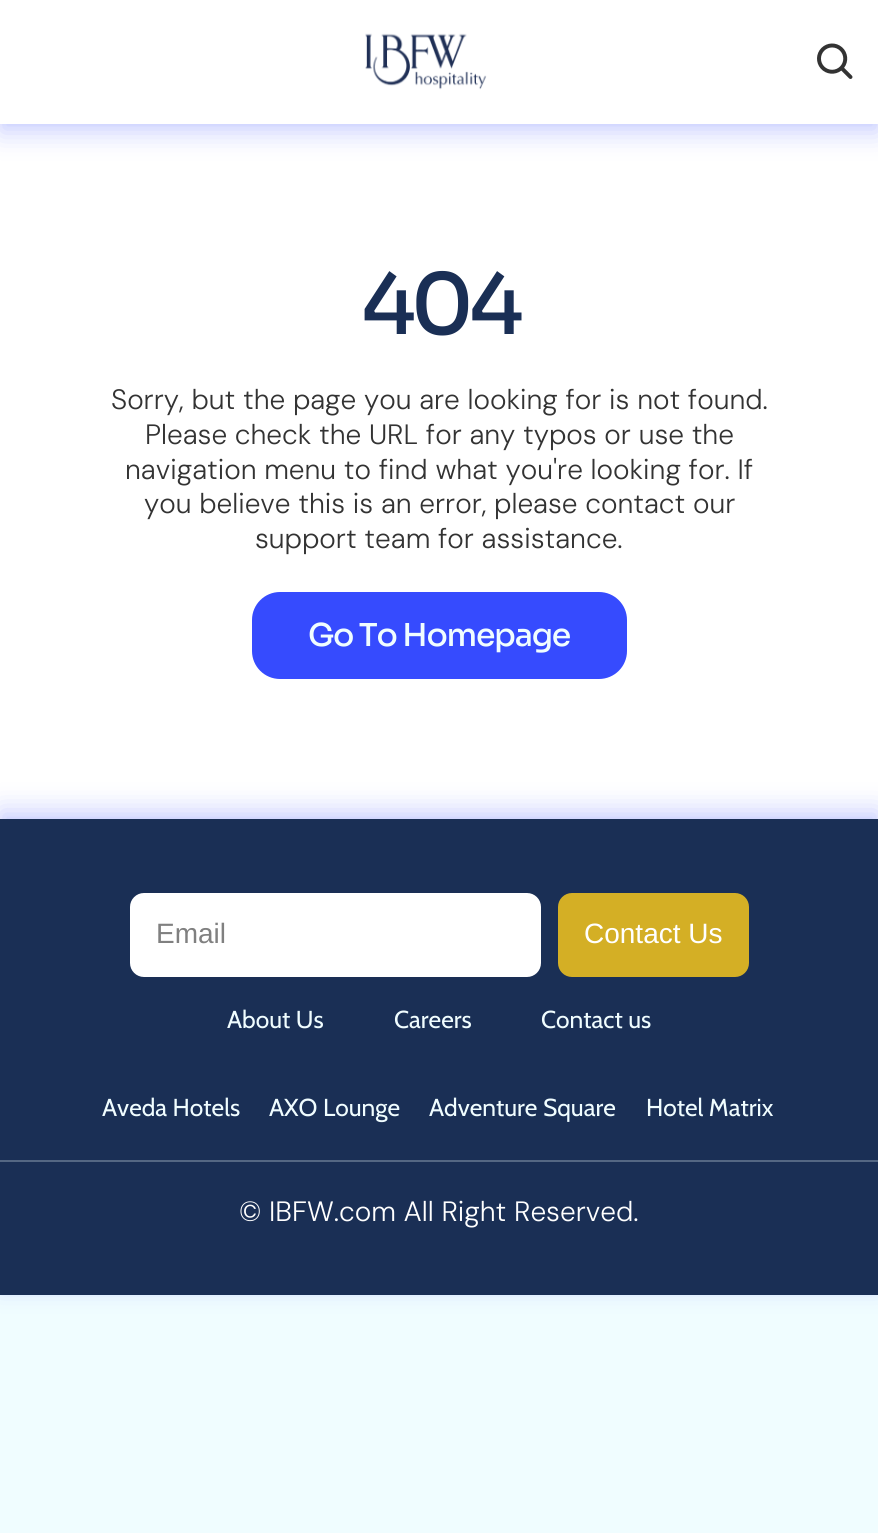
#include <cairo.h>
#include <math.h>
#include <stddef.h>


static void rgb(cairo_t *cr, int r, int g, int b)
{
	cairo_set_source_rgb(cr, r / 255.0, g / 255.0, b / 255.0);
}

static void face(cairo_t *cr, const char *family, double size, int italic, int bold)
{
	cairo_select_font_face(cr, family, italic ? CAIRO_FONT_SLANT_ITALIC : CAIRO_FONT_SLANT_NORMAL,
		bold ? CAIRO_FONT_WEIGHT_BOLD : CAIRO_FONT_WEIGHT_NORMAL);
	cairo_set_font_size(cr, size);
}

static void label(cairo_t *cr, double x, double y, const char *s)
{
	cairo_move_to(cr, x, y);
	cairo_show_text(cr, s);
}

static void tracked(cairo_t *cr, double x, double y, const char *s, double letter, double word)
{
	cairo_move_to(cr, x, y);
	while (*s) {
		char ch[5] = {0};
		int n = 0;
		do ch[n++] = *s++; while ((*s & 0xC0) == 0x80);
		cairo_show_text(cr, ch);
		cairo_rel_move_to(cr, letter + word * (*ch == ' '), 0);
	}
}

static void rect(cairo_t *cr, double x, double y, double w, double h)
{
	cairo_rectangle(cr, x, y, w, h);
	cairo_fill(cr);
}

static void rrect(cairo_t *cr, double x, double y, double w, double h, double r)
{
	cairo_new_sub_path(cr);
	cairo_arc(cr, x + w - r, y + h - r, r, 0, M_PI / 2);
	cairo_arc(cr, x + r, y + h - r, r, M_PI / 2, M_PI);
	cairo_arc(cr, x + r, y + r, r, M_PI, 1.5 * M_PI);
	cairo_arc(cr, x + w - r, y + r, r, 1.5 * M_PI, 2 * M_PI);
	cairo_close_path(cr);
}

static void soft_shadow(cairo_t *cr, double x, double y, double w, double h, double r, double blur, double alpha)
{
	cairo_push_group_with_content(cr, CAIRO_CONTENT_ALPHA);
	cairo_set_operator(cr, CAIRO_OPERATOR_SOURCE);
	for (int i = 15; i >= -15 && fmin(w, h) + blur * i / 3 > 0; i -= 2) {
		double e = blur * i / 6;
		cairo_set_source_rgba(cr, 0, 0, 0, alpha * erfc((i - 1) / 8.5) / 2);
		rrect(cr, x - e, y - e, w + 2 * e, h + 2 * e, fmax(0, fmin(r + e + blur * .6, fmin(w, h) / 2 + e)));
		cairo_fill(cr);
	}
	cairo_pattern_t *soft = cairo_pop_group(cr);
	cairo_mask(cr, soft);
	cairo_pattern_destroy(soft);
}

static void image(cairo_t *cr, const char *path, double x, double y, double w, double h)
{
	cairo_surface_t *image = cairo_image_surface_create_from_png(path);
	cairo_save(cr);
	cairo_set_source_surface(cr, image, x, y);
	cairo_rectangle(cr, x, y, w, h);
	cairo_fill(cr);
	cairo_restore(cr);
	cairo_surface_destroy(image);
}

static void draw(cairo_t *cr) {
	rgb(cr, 240, 253, 255);
	cairo_paint(cr);
	rgb(cr, 255, 255, 255);
	rect(cr, 0, 124, 878, 695);
	rgb(cr, 54, 75, 254);
	soft_shadow(cr, 0, 9, 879, 124, 0, 13, 0.25);
	soft_shadow(cr, 0, 2, 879, 124, 0, 3, 0.06);
	rgb(cr, 255, 255, 255);
	rect(cr, 0, 0, 878, 124);
	image(cr, "image0.png", 365, 33, 122, 57);
	image(cr, "image1.png", 817, 43, 36, 36);
	face(cr, "Sora Medium", 84, 0, 0);
	rgb(cr, 26, 47, 85);
	tracked(cr, 361, 334, "404", -5, 0);
	face(cr, "DM Sans Light", 28, 0, 0);
	rgb(cr, 51, 51, 51);
	label(cr, 111, 409, "Sorry, but the page you are looking for is not found.");
	label(cr, 145, 444, "Please check the URL for any typos or use the");
	label(cr, 125, 479, "navigation menu to find what you're looking for. If");
	label(cr, 144, 513, "you believe this is an error, please contact our");
	label(cr, 255, 548, "support team for assistance.");
	rgb(cr, 54, 75, 254);
	rrect(cr, 252, 592, 375, 87, 28);
	cairo_fill(cr);
	face(cr, "Sora Medium", 31.5, 0, 0);
	rgb(cr, 240, 253, 255);
	tracked(cr, 308, 646, "Go To Homepage", -1.25, 0);
	rgb(cr, 54, 75, 254);
	soft_shadow(cr, 0, 810, 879, 476, 0, 13, 0.25);
	soft_shadow(cr, 0, 817, 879, 476, 0, 3, 0.06);
	rgb(cr, 26, 47, 85);
	rect(cr, 0, 819, 878, 476);
	rgb(cr, 255, 255, 255);
	rrect(cr, 130, 893, 411, 84, 14);
	cairo_fill(cr);
	face(cr, "Liberation Sans", 28, 0, 0);
	rgb(cr, 128, 128, 128);
	label(cr, 156, 943, "Email");
	rgb(cr, 212, 175, 37);
	rrect(cr, 558, 893, 191, 84, 14);
	cairo_fill(cr);
	rgb(cr, 255, 255, 255);
	label(cr, 584, 943, "Contact Us");
	face(cr, "Cabin", 24.5, 0, 0);
	rgb(cr, 240, 253, 255);
	label(cr, 227, 1028, "About Us");
	label(cr, 394, 1028, "Careers");
	label(cr, 541, 1028, "Contact us");
	label(cr, 102, 1116, "Aveda Hotels");
	label(cr, 269, 1116, "AXO Lounge");
	label(cr, 429, 1116, "Adventure Square");
	label(cr, 646, 1116, "Hotel Matrix");
	rgb(cr, 84, 103, 131);
	rect(cr, 0, 1160, 878, 2);
	face(cr, "DM Sans Light", 28, 0, 0);
	rgb(cr, 255, 255, 255);
	label(cr, 239, 1221, "© IBFW.com All Right Reserved.");
}

int main(void) {
	cairo_surface_t *surface = cairo_image_surface_create(CAIRO_FORMAT_RGB24, 878, 1533);
	cairo_t *cr = cairo_create(surface);
	cairo_font_options_t *options = cairo_font_options_create();
	cairo_font_options_set_hint_metrics(options, CAIRO_HINT_METRICS_OFF);
	cairo_font_options_set_hint_style(options, CAIRO_HINT_STYLE_NONE);
	cairo_set_font_options(cr, options);
	cairo_set_miter_limit(cr, 4);
	draw(cr);
	cairo_surface_write_to_png(surface, "render.png");
	cairo_font_options_destroy(options);
	cairo_destroy(cr);
	cairo_surface_destroy(surface);
	return 0;
}
